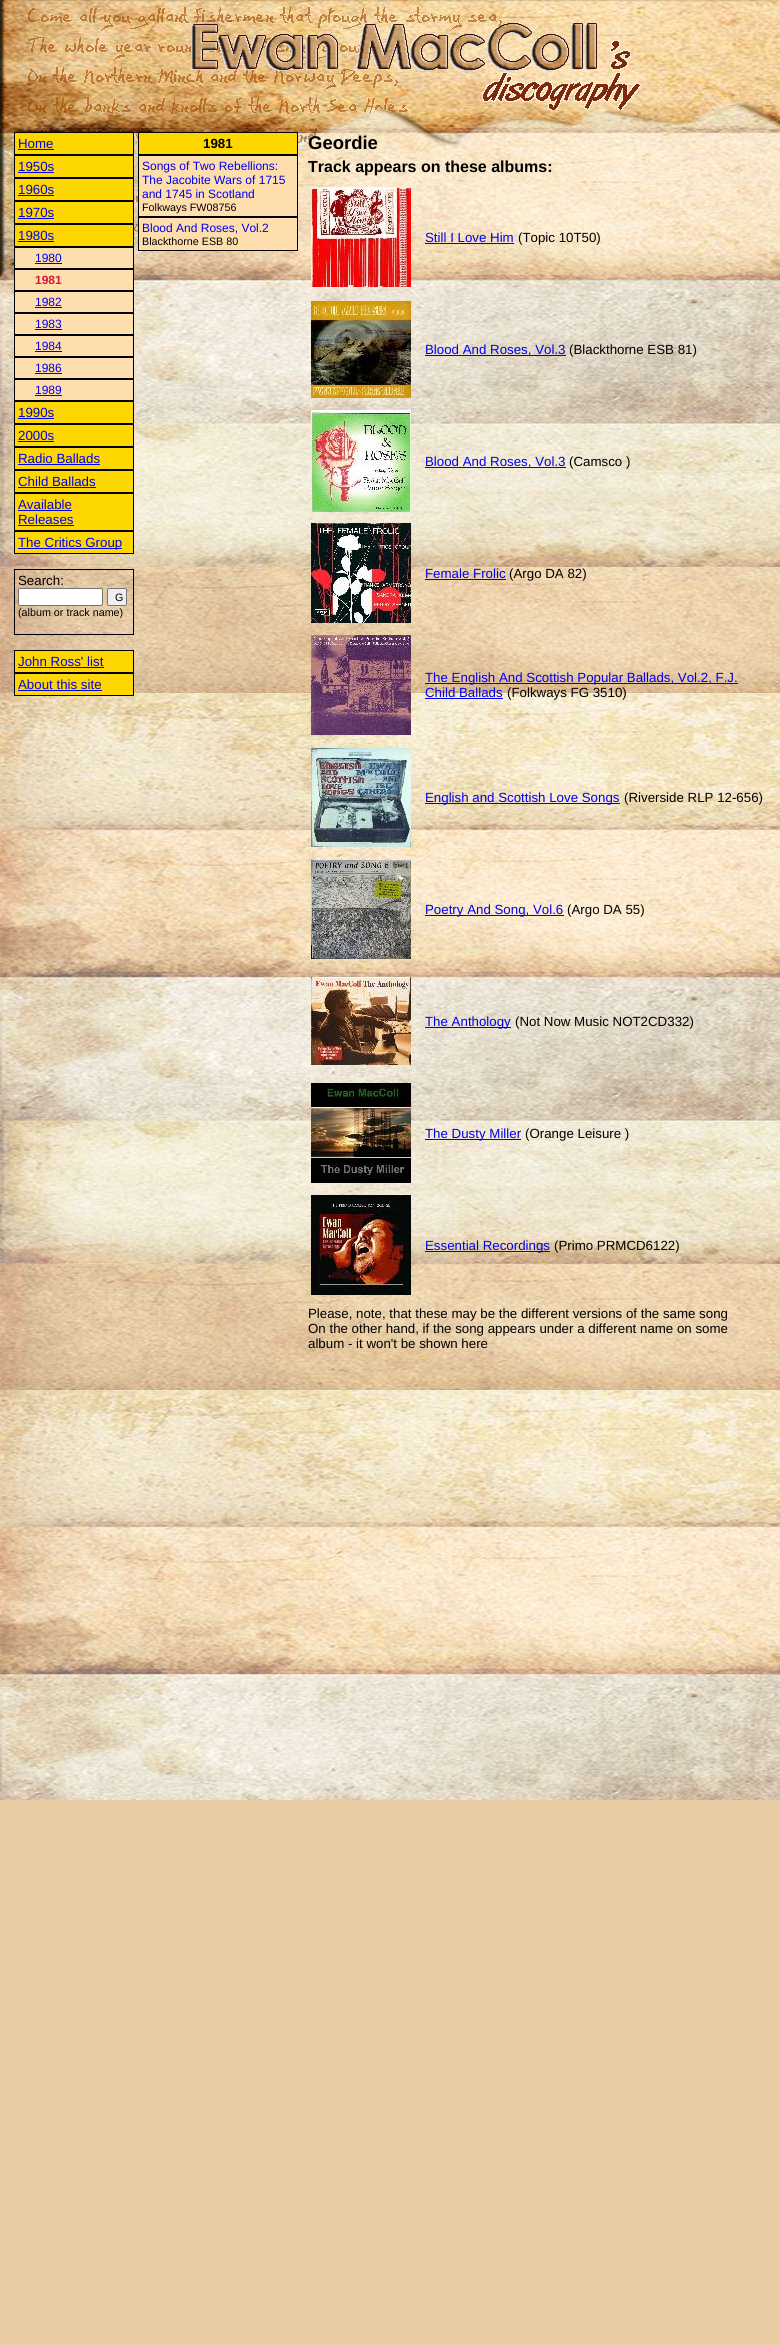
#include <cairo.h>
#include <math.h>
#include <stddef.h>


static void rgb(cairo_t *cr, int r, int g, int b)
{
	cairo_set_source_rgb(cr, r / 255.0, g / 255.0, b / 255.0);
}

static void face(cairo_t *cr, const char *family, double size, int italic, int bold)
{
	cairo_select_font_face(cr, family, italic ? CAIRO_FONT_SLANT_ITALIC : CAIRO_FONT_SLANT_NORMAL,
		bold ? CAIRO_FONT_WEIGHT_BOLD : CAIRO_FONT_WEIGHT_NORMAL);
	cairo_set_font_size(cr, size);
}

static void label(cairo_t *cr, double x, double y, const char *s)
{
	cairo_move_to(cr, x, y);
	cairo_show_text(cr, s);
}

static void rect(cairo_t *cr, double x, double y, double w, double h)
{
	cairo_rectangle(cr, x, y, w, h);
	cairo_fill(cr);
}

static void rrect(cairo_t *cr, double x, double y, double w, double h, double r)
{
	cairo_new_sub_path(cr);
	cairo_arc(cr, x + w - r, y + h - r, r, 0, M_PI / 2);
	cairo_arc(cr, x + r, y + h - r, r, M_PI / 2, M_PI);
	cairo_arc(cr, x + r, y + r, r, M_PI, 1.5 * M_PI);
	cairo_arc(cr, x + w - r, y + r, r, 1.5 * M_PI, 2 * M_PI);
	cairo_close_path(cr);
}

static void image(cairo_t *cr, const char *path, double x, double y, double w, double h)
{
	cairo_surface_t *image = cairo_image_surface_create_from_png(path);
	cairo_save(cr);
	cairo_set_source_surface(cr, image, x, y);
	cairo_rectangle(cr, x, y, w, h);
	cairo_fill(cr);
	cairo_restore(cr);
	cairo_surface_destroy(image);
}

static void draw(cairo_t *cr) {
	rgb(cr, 233, 204, 164);
	cairo_paint(cr);
	image(cr, "image0.png", 0, 0, 780, 1800);
	image(cr, "image1.png", 191, 23, 450, 87);
	rgb(cr, 255, 215, 0);
	cairo_rectangle(cr, 14.5, 132.5, 119, 22);
	cairo_fill_preserve(cr);
	rgb(cr, 0, 0, 0);
	cairo_set_line_width(cr, 1);
	cairo_stroke(cr);
	face(cr, "Liberation Sans", 13.3, 0, 0);
	rgb(cr, 0, 0, 238);
	label(cr, 18, 148, "Home");
	rect(cr, 18, 149, 36, 1);
	rgb(cr, 255, 215, 0);
	cairo_rectangle(cr, 14.5, 155.5, 119, 22);
	cairo_fill_preserve(cr);
	rgb(cr, 0, 0, 0);
	cairo_stroke(cr);
	rgb(cr, 0, 0, 238);
	label(cr, 18, 171, "1950s");
	rect(cr, 18, 172, 36, 1);
	rgb(cr, 255, 215, 0);
	cairo_rectangle(cr, 14.5, 178.5, 119, 22);
	cairo_fill_preserve(cr);
	rgb(cr, 0, 0, 0);
	cairo_stroke(cr);
	rgb(cr, 0, 0, 238);
	label(cr, 18, 194, "1960s");
	rect(cr, 18, 195, 36, 1);
	rgb(cr, 255, 215, 0);
	cairo_rectangle(cr, 14.5, 201.5, 119, 22);
	cairo_fill_preserve(cr);
	rgb(cr, 0, 0, 0);
	cairo_stroke(cr);
	rgb(cr, 0, 0, 238);
	label(cr, 18, 217, "1970s");
	rect(cr, 18, 218, 36, 1);
	rgb(cr, 255, 215, 0);
	cairo_rectangle(cr, 14.5, 224.5, 119, 22);
	cairo_fill_preserve(cr);
	rgb(cr, 0, 0, 0);
	cairo_stroke(cr);
	rgb(cr, 0, 0, 238);
	label(cr, 18, 240, "1980s");
	rect(cr, 18, 241, 36, 1);
	rgb(cr, 255, 222, 173);
	cairo_rectangle(cr, 14.5, 247.5, 119, 21);
	cairo_fill_preserve(cr);
	rgb(cr, 0, 0, 0);
	cairo_stroke(cr);
	face(cr, "Liberation Sans", 12, 0, 0);
	rgb(cr, 0, 0, 238);
	label(cr, 35, 262, "1980");
	rect(cr, 35, 263, 27, 1);
	rgb(cr, 255, 222, 173);
	cairo_rectangle(cr, 14.5, 269.5, 119, 21);
	cairo_fill_preserve(cr);
	rgb(cr, 0, 0, 0);
	cairo_stroke(cr);
	face(cr, "Liberation Sans", 12, 0, 1);
	rgb(cr, 220, 20, 60);
	label(cr, 35, 284, "1981");
	rgb(cr, 255, 222, 173);
	cairo_rectangle(cr, 14.5, 291.5, 119, 21);
	cairo_fill_preserve(cr);
	rgb(cr, 0, 0, 0);
	cairo_stroke(cr);
	face(cr, "Liberation Sans", 12, 0, 0);
	rgb(cr, 0, 0, 238);
	label(cr, 35, 306, "1982");
	rect(cr, 35, 307, 27, 1);
	rgb(cr, 255, 222, 173);
	cairo_rectangle(cr, 14.5, 313.5, 119, 21);
	cairo_fill_preserve(cr);
	rgb(cr, 0, 0, 0);
	cairo_stroke(cr);
	rgb(cr, 0, 0, 238);
	label(cr, 35, 328, "1983");
	rect(cr, 35, 329, 27, 1);
	rgb(cr, 255, 222, 173);
	cairo_rectangle(cr, 14.5, 335.5, 119, 21);
	cairo_fill_preserve(cr);
	rgb(cr, 0, 0, 0);
	cairo_stroke(cr);
	rgb(cr, 0, 0, 238);
	label(cr, 35, 350, "1984");
	rect(cr, 35, 351, 27, 1);
	rgb(cr, 255, 222, 173);
	cairo_rectangle(cr, 14.5, 357.5, 119, 21);
	cairo_fill_preserve(cr);
	rgb(cr, 0, 0, 0);
	cairo_stroke(cr);
	rgb(cr, 0, 0, 238);
	label(cr, 35, 372, "1986");
	rect(cr, 35, 373, 27, 1);
	rgb(cr, 255, 222, 173);
	cairo_rectangle(cr, 14.5, 379.5, 119, 21);
	cairo_fill_preserve(cr);
	rgb(cr, 0, 0, 0);
	cairo_stroke(cr);
	rgb(cr, 0, 0, 238);
	label(cr, 35, 394, "1989");
	rect(cr, 35, 395, 27, 1);
	rgb(cr, 255, 215, 0);
	cairo_rectangle(cr, 14.5, 401.5, 119, 22);
	cairo_fill_preserve(cr);
	rgb(cr, 0, 0, 0);
	cairo_stroke(cr);
	face(cr, "Liberation Sans", 13.3, 0, 0);
	rgb(cr, 0, 0, 238);
	label(cr, 18, 417, "1990s");
	rect(cr, 18, 418, 36, 1);
	rgb(cr, 255, 215, 0);
	cairo_rectangle(cr, 14.5, 424.5, 119, 22);
	cairo_fill_preserve(cr);
	rgb(cr, 0, 0, 0);
	cairo_stroke(cr);
	rgb(cr, 0, 0, 238);
	label(cr, 18, 440, "2000s");
	rect(cr, 18, 441, 36, 1);
	rgb(cr, 255, 215, 0);
	cairo_rectangle(cr, 14.5, 447.5, 119, 22);
	cairo_fill_preserve(cr);
	rgb(cr, 0, 0, 0);
	cairo_stroke(cr);
	rgb(cr, 0, 0, 238);
	label(cr, 18, 463, "Radio Ballads");
	rect(cr, 18, 464, 82, 1);
	rgb(cr, 255, 215, 0);
	cairo_rectangle(cr, 14.5, 470.5, 119, 22);
	cairo_fill_preserve(cr);
	rgb(cr, 0, 0, 0);
	cairo_stroke(cr);
	rgb(cr, 0, 0, 238);
	label(cr, 18, 486, "Child Ballads");
	rect(cr, 18, 487, 78, 1);
	rgb(cr, 255, 215, 0);
	cairo_rectangle(cr, 14.5, 493.5, 119, 37);
	cairo_fill_preserve(cr);
	rgb(cr, 0, 0, 0);
	cairo_stroke(cr);
	rgb(cr, 0, 0, 238);
	label(cr, 18, 509, "Available");
	rect(cr, 18, 510, 54, 1);
	label(cr, 18, 524, "Releases");
	rect(cr, 18, 525, 56, 1);
	rgb(cr, 255, 215, 0);
	cairo_rectangle(cr, 14.5, 531.5, 119, 22);
	cairo_fill_preserve(cr);
	rgb(cr, 0, 0, 0);
	cairo_stroke(cr);
	rgb(cr, 0, 0, 238);
	rect(cr, 18, 548, 104, 1);
	label(cr, 18, 547, "The Critics Group");
	cairo_rectangle(cr, 14.5, 569.5, 119, 65);
	rgb(cr, 0, 0, 0);
	cairo_stroke(cr);
	label(cr, 18, 585, "Search:");
	rgb(cr, 255, 255, 255);
	rrect(cr, 18.5, 588.5, 84, 17, 1.5);
	cairo_fill_preserve(cr);
	rgb(cr, 118, 118, 118);
	cairo_stroke(cr);
	rgb(cr, 239, 239, 239);
	rrect(cr, 107.5, 588.5, 19, 17, 1.5);
	cairo_fill_preserve(cr);
	rgb(cr, 118, 118, 118);
	cairo_stroke(cr);
	face(cr, "Liberation Sans", 10.75, 0, 0);
	rgb(cr, 0, 0, 0);
	label(cr, 115, 601, "G");
	label(cr, 18, 616, "(album or track name)");
	rgb(cr, 255, 215, 0);
	cairo_rectangle(cr, 14.5, 650.5, 119, 22);
	cairo_fill_preserve(cr);
	rgb(cr, 0, 0, 0);
	cairo_stroke(cr);
	face(cr, "Liberation Sans", 13.3, 0, 0);
	rgb(cr, 0, 0, 238);
	label(cr, 18, 666, "John Ross' list");
	rect(cr, 18, 667, 86, 1);
	rgb(cr, 255, 215, 0);
	cairo_rectangle(cr, 14.5, 673.5, 119, 22);
	cairo_fill_preserve(cr);
	rgb(cr, 0, 0, 0);
	cairo_stroke(cr);
	rgb(cr, 0, 0, 238);
	label(cr, 18, 689, "About this site");
	rect(cr, 18, 690, 84, 1);
	rgb(cr, 255, 215, 0);
	cairo_rectangle(cr, 138.5, 132.5, 159, 22);
	cairo_fill_preserve(cr);
	rgb(cr, 0, 0, 0);
	cairo_stroke(cr);
	face(cr, "Liberation Sans", 13.3, 0, 1);
	label(cr, 203, 148, "1981");
	rgb(cr, 255, 222, 173);
	cairo_rectangle(cr, 138.5, 155.5, 159, 61);
	cairo_fill_preserve(cr);
	rgb(cr, 0, 0, 0);
	cairo_stroke(cr);
	face(cr, "Liberation Sans", 12, 0, 0);
	rgb(cr, 0, 0, 238);
	label(cr, 142, 170, "Songs of Two Rebellions:");
	label(cr, 142, 184, "The Jacobite Wars of 1715");
	label(cr, 142, 198, "and 1745 in Scotland");
	face(cr, "Liberation Sans", 10.75, 0, 0);
	rgb(cr, 0, 0, 0);
	label(cr, 142, 211, "Folkways FW08756");
	rgb(cr, 255, 222, 173);
	cairo_rectangle(cr, 138.5, 217.5, 159, 33);
	cairo_fill_preserve(cr);
	rgb(cr, 0, 0, 0);
	cairo_stroke(cr);
	face(cr, "Liberation Sans", 12, 0, 0);
	rgb(cr, 0, 0, 238);
	label(cr, 142, 232, "Blood And Roses, Vol.2");
	face(cr, "Liberation Sans", 10.75, 0, 0);
	rgb(cr, 0, 0, 0);
	label(cr, 142, 245, "Blackthorne ESB 80");
	face(cr, "Liberation Sans", 18.5, 0, 1);
	label(cr, 308, 149, "Geordie");
	face(cr, "Liberation Sans", 16, 0, 1);
	label(cr, 308, 172, "Track appears on these albums:");
	image(cr, "image2.png", 311, 187, 100, 100);
	face(cr, "Liberation Sans", 13.3, 0, 0);
	rgb(cr, 0, 0, 238);
	label(cr, 425, 242, "Still I Love Him");
	rect(cr, 425, 243, 89, 1);
	rgb(cr, 0, 0, 0);
	label(cr, 518, 242, "(Topic 10T50)");
	image(cr, "image3.png", 311, 301, 100, 97);
	rgb(cr, 0, 0, 238);
	rect(cr, 425, 355, 141, 1);
	label(cr, 425, 354, "Blood And Roses, Vol.3");
	rgb(cr, 0, 0, 0);
	label(cr, 569, 354, "(Blackthorne ESB 81)");
	image(cr, "image4.png", 311, 410, 100, 102);
	rgb(cr, 0, 0, 238);
	rect(cr, 425, 467, 141, 1);
	label(cr, 425, 466, "Blood And Roses, Vol.3");
	rgb(cr, 0, 0, 0);
	label(cr, 569, 466, "(Camsco )");
	image(cr, "image5.png", 311, 523, 100, 100);
	rgb(cr, 0, 0, 238);
	label(cr, 425, 578, "Female Frolic");
	rect(cr, 425, 579, 81, 1);
	rgb(cr, 0, 0, 0);
	label(cr, 509, 578, "(Argo DA 82)");
	image(cr, "image6.png", 311, 635, 100, 100);
	rgb(cr, 0, 0, 238);
	rect(cr, 425, 683, 313, 1);
	label(cr, 425, 682, "The English And Scottish Popular Ballads, Vol.2, F.J.");
	label(cr, 425, 697, "Child Ballads");
	rect(cr, 425, 698, 78, 1);
	rgb(cr, 0, 0, 0);
	label(cr, 507, 697, "(Folkways FG 3510)");
	image(cr, "image7.png", 311, 748, 100, 99);
	rgb(cr, 0, 0, 238);
	rect(cr, 425, 803, 195, 1);
	label(cr, 425, 802, "English and Scottish Love Songs");
	rgb(cr, 0, 0, 0);
	label(cr, 624, 802, "(Riverside RLP 12-656)");
	image(cr, "image8.png", 311, 860, 100, 99);
	rgb(cr, 0, 0, 238);
	rect(cr, 425, 915, 139, 1);
	label(cr, 425, 914, "Poetry And Song, Vol.6");
	rgb(cr, 0, 0, 0);
	label(cr, 567, 914, "(Argo DA 55)");
	image(cr, "image9.png", 311, 977, 100, 88);
	rgb(cr, 0, 0, 238);
	rect(cr, 425, 1027, 86, 1);
	label(cr, 425, 1026, "The Anthology");
	rgb(cr, 0, 0, 0);
	label(cr, 515, 1026, "(Not Now Music NOT2CD332)");
	image(cr, "image10.png", 311, 1083, 100, 100);
	rgb(cr, 0, 0, 238);
	rect(cr, 425, 1139, 96, 1);
	label(cr, 425, 1138, "The Dusty Miller");
	rgb(cr, 0, 0, 0);
	label(cr, 525, 1138, "(Orange Leisure )");
	image(cr, "image11.png", 311, 1195, 100, 100);
	rgb(cr, 0, 0, 238);
	rect(cr, 425, 1251, 125, 1);
	label(cr, 425, 1250, "Essential Recordings");
	rgb(cr, 0, 0, 0);
	label(cr, 554, 1250, "(Primo PRMCD6122)");
	label(cr, 308, 1318, "Please, note, that these may be the different versions of the same song");
	label(cr, 308, 1333, "On the other hand, if the song appears under a different name on some");
	label(cr, 308, 1348, "album - it won't be shown here");
}

int main(void) {
	cairo_surface_t *surface = cairo_image_surface_create(CAIRO_FORMAT_RGB24, 780, 2345);
	cairo_t *cr = cairo_create(surface);
	cairo_font_options_t *options = cairo_font_options_create();
	cairo_font_options_set_hint_metrics(options, CAIRO_HINT_METRICS_OFF);
	cairo_font_options_set_hint_style(options, CAIRO_HINT_STYLE_NONE);
	cairo_set_font_options(cr, options);
	cairo_set_miter_limit(cr, 4);
	draw(cr);
	cairo_surface_write_to_png(surface, "render.png");
	cairo_font_options_destroy(options);
	cairo_destroy(cr);
	cairo_surface_destroy(surface);
	return 0;
}
